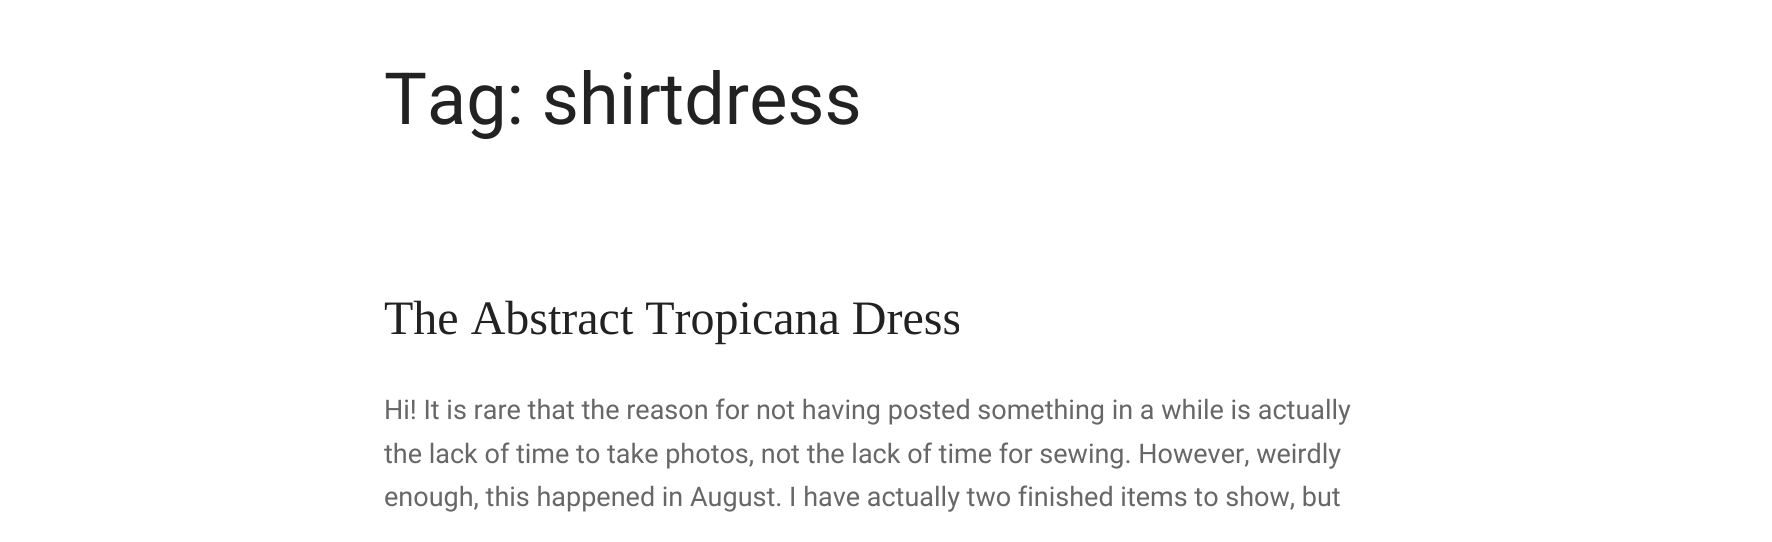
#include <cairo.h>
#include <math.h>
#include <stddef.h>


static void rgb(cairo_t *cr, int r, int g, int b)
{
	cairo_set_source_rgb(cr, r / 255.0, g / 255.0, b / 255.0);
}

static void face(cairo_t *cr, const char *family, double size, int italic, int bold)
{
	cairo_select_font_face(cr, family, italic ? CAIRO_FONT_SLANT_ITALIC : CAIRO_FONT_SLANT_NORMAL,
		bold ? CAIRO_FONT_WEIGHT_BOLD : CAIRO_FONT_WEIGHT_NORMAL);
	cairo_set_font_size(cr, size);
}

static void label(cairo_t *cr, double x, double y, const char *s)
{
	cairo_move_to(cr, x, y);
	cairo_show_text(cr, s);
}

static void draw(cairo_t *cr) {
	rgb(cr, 255, 255, 255);
	cairo_paint(cr);
	face(cr, "Roboto", 72, 0, 0);
	rgb(cr, 34, 34, 34);
	label(cr, 384, 124, "Tag: shirtdress");
	face(cr, "Liberation Serif", 48, 0, 0);
	label(cr, 384, 334, "The Abstract Tropicana Dress");
	face(cr, "Roboto", 27, 0, 0);
	rgb(cr, 103, 103, 103);
	label(cr, 384, 419, "Hi! It is rare that the reason for not having posted something in a while is actually");
	label(cr, 384, 463, "the lack of time to take photos, not the lack of time for sewing. However, weirdly");
	label(cr, 384, 506, "enough, this happened in August. I have actually two finished items to show, but");
}

int main(void) {
	cairo_surface_t *surface = cairo_image_surface_create(CAIRO_FORMAT_RGB24, 1772, 542);
	cairo_t *cr = cairo_create(surface);
	cairo_font_options_t *options = cairo_font_options_create();
	cairo_font_options_set_hint_metrics(options, CAIRO_HINT_METRICS_OFF);
	cairo_font_options_set_hint_style(options, CAIRO_HINT_STYLE_NONE);
	cairo_set_font_options(cr, options);
	cairo_set_miter_limit(cr, 4);
	draw(cr);
	cairo_surface_write_to_png(surface, "render.png");
	cairo_font_options_destroy(options);
	cairo_destroy(cr);
	cairo_surface_destroy(surface);
	return 0;
}
